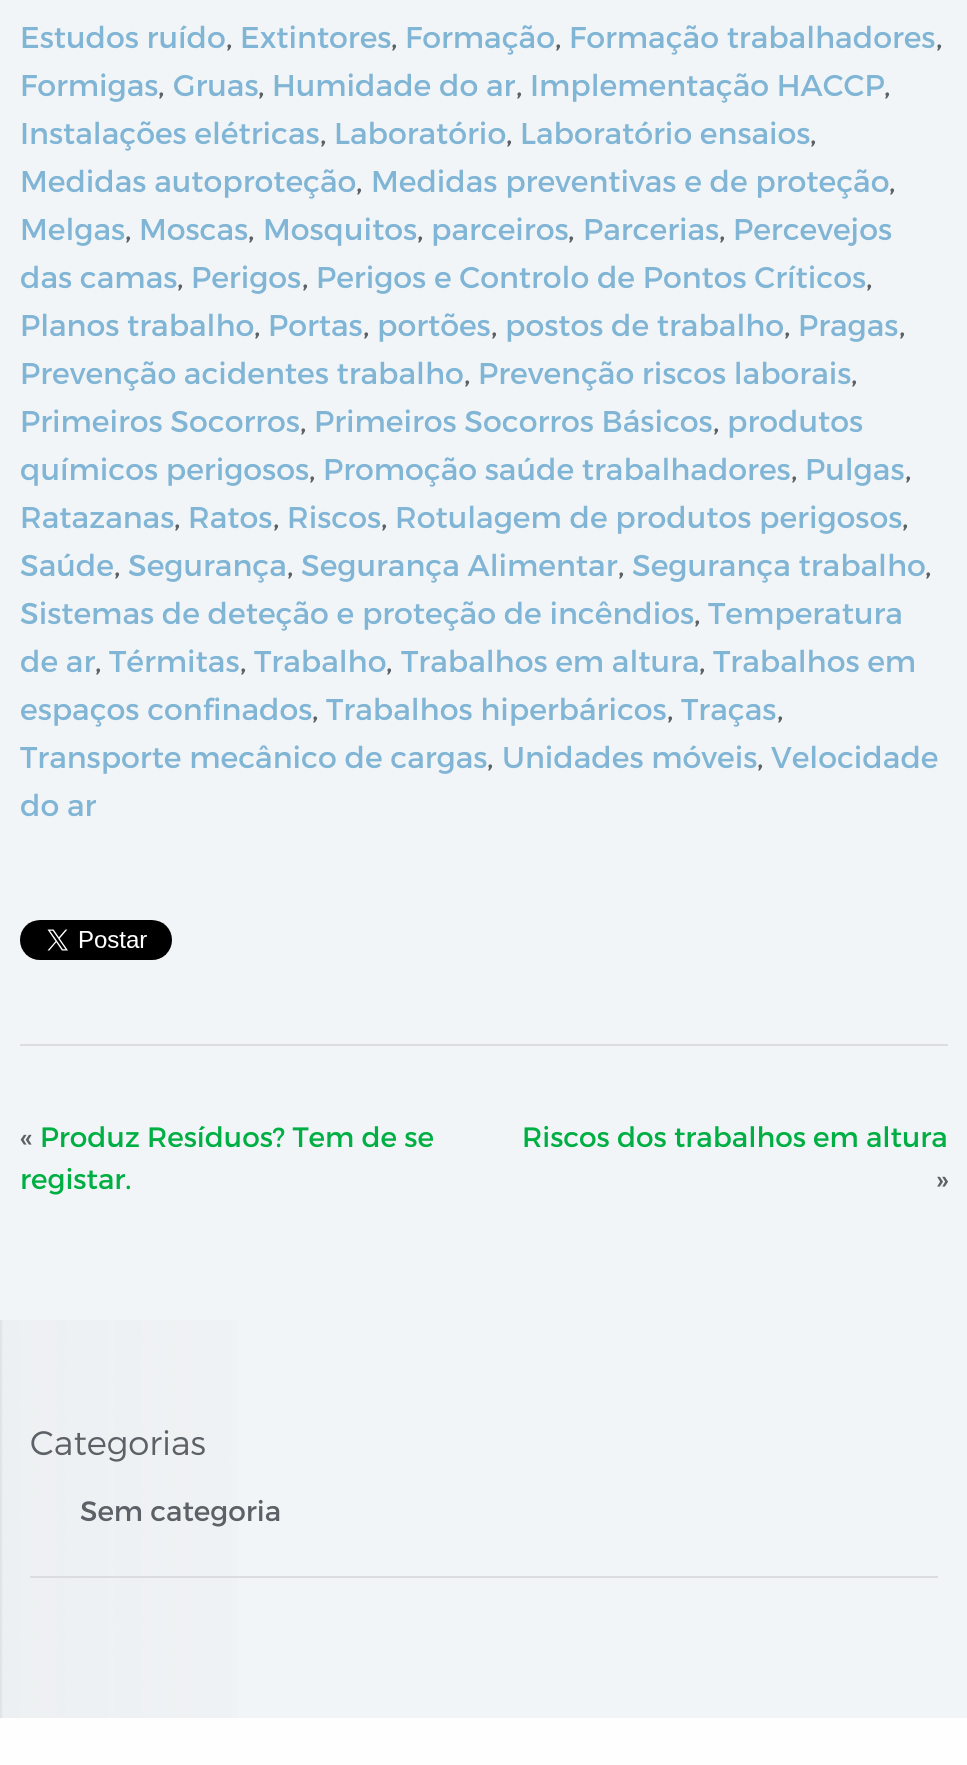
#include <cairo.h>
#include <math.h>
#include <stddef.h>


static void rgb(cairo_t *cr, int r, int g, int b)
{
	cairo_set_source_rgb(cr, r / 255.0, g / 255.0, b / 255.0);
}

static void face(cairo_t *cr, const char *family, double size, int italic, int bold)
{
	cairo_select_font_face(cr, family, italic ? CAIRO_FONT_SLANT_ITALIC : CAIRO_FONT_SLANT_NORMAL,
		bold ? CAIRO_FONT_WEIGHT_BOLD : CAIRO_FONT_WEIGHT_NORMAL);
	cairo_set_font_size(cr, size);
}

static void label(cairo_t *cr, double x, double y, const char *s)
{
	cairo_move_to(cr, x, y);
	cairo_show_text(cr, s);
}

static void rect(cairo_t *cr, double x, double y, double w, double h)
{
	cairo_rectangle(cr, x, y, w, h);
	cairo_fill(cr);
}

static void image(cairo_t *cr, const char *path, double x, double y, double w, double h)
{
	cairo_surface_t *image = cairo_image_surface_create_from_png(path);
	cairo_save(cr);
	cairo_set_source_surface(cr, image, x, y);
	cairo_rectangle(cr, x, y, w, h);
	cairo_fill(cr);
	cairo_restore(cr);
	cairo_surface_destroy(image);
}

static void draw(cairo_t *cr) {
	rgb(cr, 242, 245, 247);
	cairo_paint(cr);
	face(cr, "Montserrat", 30, 0, 0);
	rgb(cr, 129, 181, 213);
	label(cr, 20, 48, "Estudos ruído");
	rgb(cr, 91, 97, 102);
	label(cr, 226, 48, ",");
	rgb(cr, 129, 181, 213);
	label(cr, 240, 48, "Extintores");
	rgb(cr, 91, 97, 102);
	label(cr, 391, 48, ",");
	rgb(cr, 129, 181, 213);
	label(cr, 405, 48, "Formação");
	rgb(cr, 91, 97, 102);
	label(cr, 555, 48, ",");
	rgb(cr, 129, 181, 213);
	label(cr, 569, 48, "Formação trabalhadores");
	rgb(cr, 91, 97, 102);
	label(cr, 936, 48, ",");
	rgb(cr, 129, 181, 213);
	label(cr, 20, 96, "Formigas");
	rgb(cr, 91, 97, 102);
	label(cr, 158, 96, ",");
	rgb(cr, 129, 181, 213);
	label(cr, 173, 96, "Gruas");
	rgb(cr, 91, 97, 102);
	label(cr, 258, 96, ",");
	rgb(cr, 129, 181, 213);
	label(cr, 272, 96, "Humidade do ar");
	rgb(cr, 91, 97, 102);
	label(cr, 516, 96, ",");
	rgb(cr, 129, 181, 213);
	label(cr, 530, 96, "Implementação HACCP");
	rgb(cr, 91, 97, 102);
	label(cr, 884, 96, ",");
	rgb(cr, 129, 181, 213);
	label(cr, 20, 144, "Instalações elétricas");
	rgb(cr, 91, 97, 102);
	label(cr, 320, 144, ",");
	rgb(cr, 129, 181, 213);
	label(cr, 334, 144, "Laboratório");
	rgb(cr, 91, 97, 102);
	label(cr, 506, 144, ",");
	rgb(cr, 129, 181, 213);
	label(cr, 520, 144, "Laboratório ensaios");
	rgb(cr, 91, 97, 102);
	label(cr, 810, 144, ",");
	rgb(cr, 129, 181, 213);
	label(cr, 20, 192, "Medidas autoproteção");
	rgb(cr, 91, 97, 102);
	label(cr, 356, 192, ",");
	rgb(cr, 129, 181, 213);
	label(cr, 371, 192, "Medidas preventivas e de proteção");
	rgb(cr, 91, 97, 102);
	label(cr, 889, 192, ",");
	rgb(cr, 129, 181, 213);
	label(cr, 20, 240, "Melgas");
	rgb(cr, 91, 97, 102);
	label(cr, 125, 240, ",");
	rgb(cr, 129, 181, 213);
	label(cr, 139, 240, "Moscas");
	rgb(cr, 91, 97, 102);
	label(cr, 248, 240, ",");
	rgb(cr, 129, 181, 213);
	label(cr, 263, 240, "Mosquitos");
	rgb(cr, 91, 97, 102);
	label(cr, 417, 240, ",");
	rgb(cr, 129, 181, 213);
	label(cr, 431, 240, "parceiros");
	rgb(cr, 91, 97, 102);
	label(cr, 568, 240, ",");
	rgb(cr, 129, 181, 213);
	label(cr, 583, 240, "Parcerias");
	rgb(cr, 91, 97, 102);
	label(cr, 719, 240, ",");
	rgb(cr, 129, 181, 213);
	label(cr, 733, 240, "Percevejos");
	label(cr, 20, 288, "das camas");
	rgb(cr, 91, 97, 102);
	label(cr, 177, 288, ",");
	rgb(cr, 129, 181, 213);
	label(cr, 191, 288, "Perigos");
	rgb(cr, 91, 97, 102);
	label(cr, 302, 288, ",");
	rgb(cr, 129, 181, 213);
	label(cr, 316, 288, "Perigos e Controlo de Pontos Críticos");
	rgb(cr, 91, 97, 102);
	label(cr, 866, 288, ",");
	rgb(cr, 129, 181, 213);
	label(cr, 20, 336, "Planos trabalho");
	rgb(cr, 91, 97, 102);
	label(cr, 254, 336, ",");
	rgb(cr, 129, 181, 213);
	label(cr, 268, 336, "Portas");
	rgb(cr, 91, 97, 102);
	label(cr, 363, 336, ",");
	rgb(cr, 129, 181, 213);
	label(cr, 377, 336, "portões");
	rgb(cr, 91, 97, 102);
	label(cr, 491, 336, ",");
	rgb(cr, 129, 181, 213);
	label(cr, 505, 336, "postos de trabalho");
	rgb(cr, 91, 97, 102);
	label(cr, 784, 336, ",");
	rgb(cr, 129, 181, 213);
	label(cr, 798, 336, "Pragas");
	rgb(cr, 91, 97, 102);
	label(cr, 899, 336, ",");
	rgb(cr, 129, 181, 213);
	label(cr, 20, 384, "Prevenção acidentes trabalho");
	rgb(cr, 91, 97, 102);
	label(cr, 464, 384, ",");
	rgb(cr, 129, 181, 213);
	label(cr, 478, 384, "Prevenção riscos laborais");
	rgb(cr, 91, 97, 102);
	label(cr, 851, 384, ",");
	rgb(cr, 129, 181, 213);
	label(cr, 20, 432, "Primeiros Socorros");
	rgb(cr, 91, 97, 102);
	label(cr, 300, 432, ",");
	rgb(cr, 129, 181, 213);
	label(cr, 314, 432, "Primeiros Socorros Básicos");
	rgb(cr, 91, 97, 102);
	label(cr, 713, 432, ",");
	rgb(cr, 129, 181, 213);
	label(cr, 727, 432, "produtos");
	label(cr, 20, 480, "químicos perigosos");
	rgb(cr, 91, 97, 102);
	label(cr, 309, 480, ",");
	rgb(cr, 129, 181, 213);
	label(cr, 323, 480, "Promoção saúde trabalhadores");
	rgb(cr, 91, 97, 102);
	label(cr, 791, 480, ",");
	rgb(cr, 129, 181, 213);
	label(cr, 805, 480, "Pulgas");
	rgb(cr, 91, 97, 102);
	label(cr, 905, 480, ",");
	rgb(cr, 129, 181, 213);
	label(cr, 20, 528, "Ratazanas");
	rgb(cr, 91, 97, 102);
	label(cr, 174, 528, ",");
	rgb(cr, 129, 181, 213);
	label(cr, 188, 528, "Ratos");
	rgb(cr, 91, 97, 102);
	label(cr, 273, 528, ",");
	rgb(cr, 129, 181, 213);
	label(cr, 287, 528, "Riscos");
	rgb(cr, 91, 97, 102);
	label(cr, 381, 528, ",");
	rgb(cr, 129, 181, 213);
	label(cr, 395, 528, "Rotulagem de produtos perigosos");
	rgb(cr, 91, 97, 102);
	label(cr, 902, 528, ",");
	rgb(cr, 129, 181, 213);
	label(cr, 20, 576, "Saúde");
	rgb(cr, 91, 97, 102);
	label(cr, 114, 576, ",");
	rgb(cr, 129, 181, 213);
	label(cr, 128, 576, "Segurança");
	rgb(cr, 91, 97, 102);
	label(cr, 287, 576, ",");
	rgb(cr, 129, 181, 213);
	label(cr, 301, 576, "Segurança Alimentar");
	rgb(cr, 91, 97, 102);
	label(cr, 618, 576, ",");
	rgb(cr, 129, 181, 213);
	label(cr, 632, 576, "Segurança trabalho");
	rgb(cr, 91, 97, 102);
	label(cr, 925, 576, ",");
	rgb(cr, 129, 181, 213);
	label(cr, 20, 624, "Sistemas de deteção e proteção de incêndios");
	rgb(cr, 91, 97, 102);
	label(cr, 694, 624, ",");
	rgb(cr, 129, 181, 213);
	label(cr, 708, 624, "Temperatura");
	label(cr, 20, 672, "de ar");
	rgb(cr, 91, 97, 102);
	label(cr, 95, 672, ",");
	rgb(cr, 129, 181, 213);
	label(cr, 109, 672, "Térmitas");
	rgb(cr, 91, 97, 102);
	label(cr, 240, 672, ",");
	rgb(cr, 129, 181, 213);
	label(cr, 254, 672, "Trabalho");
	rgb(cr, 91, 97, 102);
	label(cr, 386, 672, ",");
	rgb(cr, 129, 181, 213);
	label(cr, 401, 672, "Trabalhos em altura");
	rgb(cr, 91, 97, 102);
	label(cr, 699, 672, ",");
	rgb(cr, 129, 181, 213);
	label(cr, 713, 672, "Trabalhos em");
	label(cr, 20, 720, "espaços confinados");
	rgb(cr, 91, 97, 102);
	label(cr, 312, 720, ",");
	rgb(cr, 129, 181, 213);
	label(cr, 326, 720, "Trabalhos hiperbáricos");
	rgb(cr, 91, 97, 102);
	label(cr, 667, 720, ",");
	rgb(cr, 129, 181, 213);
	label(cr, 681, 720, "Traças");
	rgb(cr, 91, 97, 102);
	label(cr, 777, 720, ",");
	rgb(cr, 129, 181, 213);
	label(cr, 20, 768, "Transporte mecânico de cargas");
	rgb(cr, 91, 97, 102);
	label(cr, 487, 768, ",");
	rgb(cr, 129, 181, 213);
	label(cr, 502, 768, "Unidades móveis");
	rgb(cr, 91, 97, 102);
	label(cr, 757, 768, ",");
	rgb(cr, 129, 181, 213);
	label(cr, 771, 768, "Velocidade");
	label(cr, 20, 816, "do ar");
	image(cr, "image0.png", 20, 920, 152, 40);
	rgb(cr, 218, 220, 221);
	rect(cr, 20, 1044, 928, 2);
	face(cr, "Montserrat", 28, 0, 0);
	rgb(cr, 91, 97, 102);
	label(cr, 20, 1147, "«");
	rgb(cr, 0, 175, 67);
	label(cr, 40, 1147, "Produz Resíduos? Tem de se");
	label(cr, 20, 1189, "registar.");
	label(cr, 522, 1147, "Riscos dos trabalhos em altura");
	rgb(cr, 91, 97, 102);
	label(cr, 935, 1189, "»");
	image(cr, "image1.png", 0, 1320, 238, 398);
	face(cr, "Montserrat Light", 34, 0, 0);
	label(cr, 30, 1455, "Categorias");
	face(cr, "Montserrat", 28, 0, 0);
	label(cr, 80, 1521, "Sem categoria");
	rgb(cr, 218, 220, 221);
	rect(cr, 30, 1576, 908, 2);
	rgb(cr, 254, 254, 254);
	rect(cr, 0, 1718, 967, 47);
}

int main(void) {
	cairo_surface_t *surface = cairo_image_surface_create(CAIRO_FORMAT_RGB24, 967, 1765);
	cairo_t *cr = cairo_create(surface);
	cairo_font_options_t *options = cairo_font_options_create();
	cairo_font_options_set_hint_metrics(options, CAIRO_HINT_METRICS_OFF);
	cairo_font_options_set_hint_style(options, CAIRO_HINT_STYLE_NONE);
	cairo_set_font_options(cr, options);
	cairo_set_miter_limit(cr, 4);
	draw(cr);
	cairo_surface_write_to_png(surface, "render.png");
	cairo_font_options_destroy(options);
	cairo_destroy(cr);
	cairo_surface_destroy(surface);
	return 0;
}
